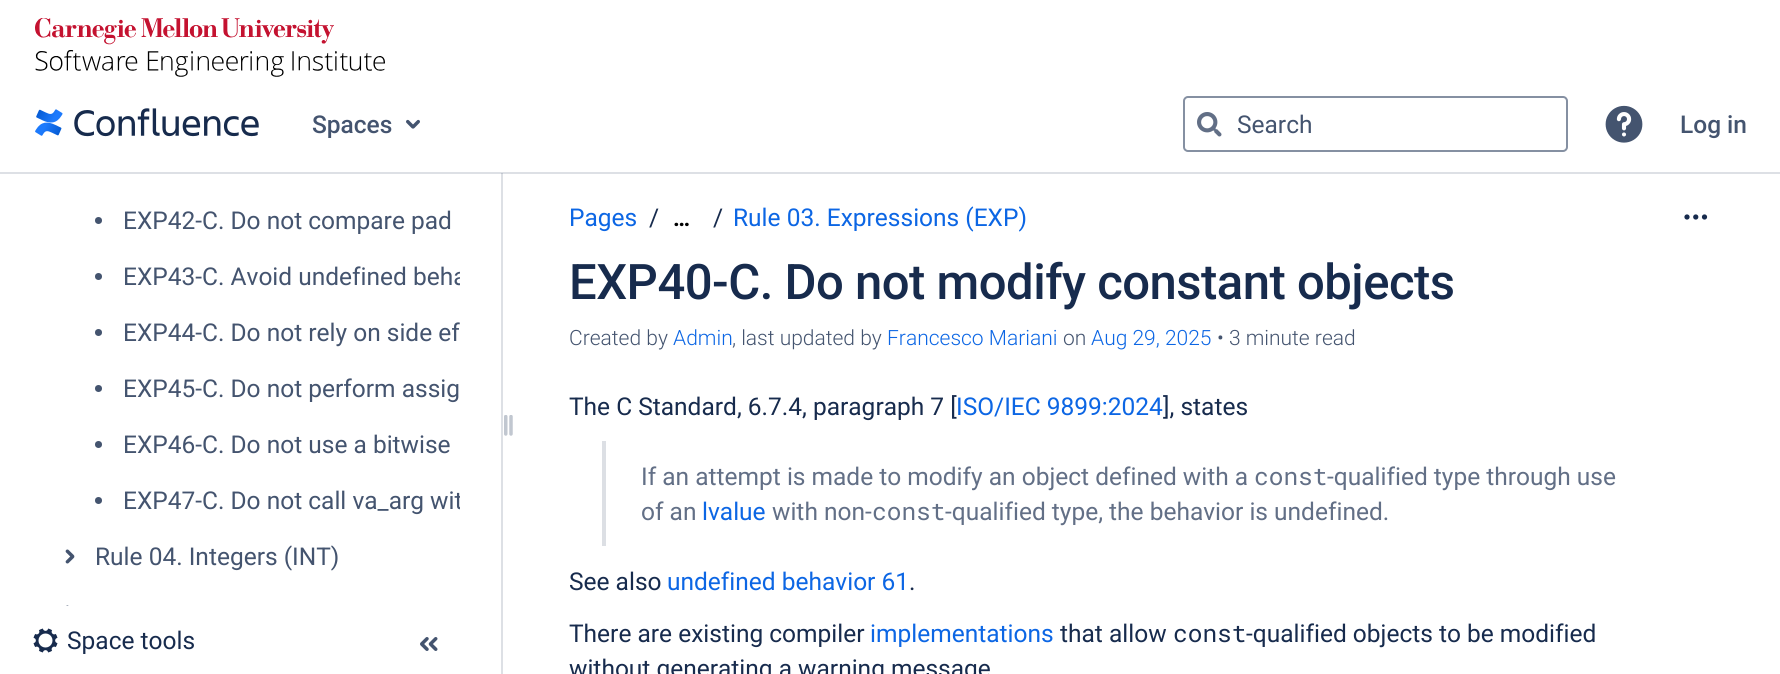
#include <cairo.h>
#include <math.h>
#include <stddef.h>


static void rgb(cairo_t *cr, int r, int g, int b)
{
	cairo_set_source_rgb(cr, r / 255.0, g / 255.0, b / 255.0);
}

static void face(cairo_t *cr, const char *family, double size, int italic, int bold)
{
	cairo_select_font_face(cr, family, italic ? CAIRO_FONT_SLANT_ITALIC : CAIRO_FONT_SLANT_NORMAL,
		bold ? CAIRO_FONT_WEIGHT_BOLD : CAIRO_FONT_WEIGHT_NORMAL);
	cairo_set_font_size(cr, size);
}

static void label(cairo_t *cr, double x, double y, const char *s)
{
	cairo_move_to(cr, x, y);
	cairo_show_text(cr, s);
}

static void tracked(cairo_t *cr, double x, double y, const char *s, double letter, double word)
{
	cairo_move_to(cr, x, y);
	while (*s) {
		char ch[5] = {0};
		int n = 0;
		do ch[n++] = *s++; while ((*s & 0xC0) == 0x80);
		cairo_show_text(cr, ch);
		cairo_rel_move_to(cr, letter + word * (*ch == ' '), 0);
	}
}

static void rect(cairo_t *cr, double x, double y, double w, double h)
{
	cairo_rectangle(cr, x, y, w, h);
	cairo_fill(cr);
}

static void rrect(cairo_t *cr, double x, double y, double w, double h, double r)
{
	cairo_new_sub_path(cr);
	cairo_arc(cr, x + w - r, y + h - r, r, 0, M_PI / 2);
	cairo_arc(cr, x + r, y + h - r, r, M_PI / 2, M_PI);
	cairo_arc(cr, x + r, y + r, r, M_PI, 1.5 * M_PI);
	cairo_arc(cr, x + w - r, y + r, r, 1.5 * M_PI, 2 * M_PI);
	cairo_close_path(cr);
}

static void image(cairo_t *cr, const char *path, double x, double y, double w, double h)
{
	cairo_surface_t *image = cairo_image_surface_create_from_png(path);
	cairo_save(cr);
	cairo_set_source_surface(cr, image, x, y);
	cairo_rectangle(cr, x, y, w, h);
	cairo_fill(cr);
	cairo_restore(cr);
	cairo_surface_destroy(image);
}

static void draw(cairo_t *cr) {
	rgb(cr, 255, 255, 255);
	cairo_paint(cr);
	image(cr, "image0.png", 35, 18, 350, 59);
	rgb(cr, 221, 224, 229);
	rect(cr, 501, 173, 2, 501);
	cairo_set_source_rgba(cr, 0.035, 0.118, 0.259, 0.14);
	rect(cr, 0, 172, 1780, 2);
	image(cr, "image1.png", 35, 108, 224, 29);
	face(cr, "Roboto Medium", 24.5, 0, 0);
	rgb(cr, 68, 84, 111);
	label(cr, 312, 133, "Spaces");
	image(cr, "image2.png", 406, 119, 14, 10);
	rrect(cr, 1184, 97, 383, 54, 4);
	rgb(cr, 133, 144, 162);
	cairo_stroke(cr);
	image(cr, "image3.png", 1197, 112, 25, 25);
	face(cr, "Roboto", 24.5, 0, 0);
	rgb(cr, 68, 84, 111);
	label(cr, 1237, 133, "Search");
	image(cr, "image4.png", 1605, 105, 38, 38);
	face(cr, "Roboto Medium", 24.5, 0, 0);
	label(cr, 1680, 133, "Log in");
	cairo_new_path(cr);
	cairo_arc(cr, 98.5, 220.5, 3.5, 0, 2 * M_PI);
	cairo_fill(cr);
	face(cr, "Roboto", 24.5, 0, 0);
	label(cr, 123, 229, "EXP42-C. Do not compare pad");
	cairo_new_path(cr);
	cairo_arc(cr, 98.5, 276.5, 3.5, 0, 2 * M_PI);
	cairo_fill(cr);
	cairo_save(cr);
	cairo_rectangle(cr, 119, 256, 341, 42);
	cairo_clip(cr);
	label(cr, 123, 285, "EXP43-C. Avoid undefined beha");
	cairo_restore(cr);
	cairo_new_path(cr);
	cairo_arc(cr, 98.5, 332.5, 3.5, 0, 2 * M_PI);
	cairo_fill(cr);
	label(cr, 123, 341, "EXP44-C. Do not rely on side ef");
	cairo_new_path(cr);
	cairo_arc(cr, 98.5, 388.5, 3.5, 0, 2 * M_PI);
	cairo_fill(cr);
	label(cr, 123, 397, "EXP45-C. Do not perform assig");
	cairo_new_path(cr);
	cairo_arc(cr, 98.5, 444.5, 3.5, 0, 2 * M_PI);
	cairo_fill(cr);
	label(cr, 123, 453, "EXP46-C. Do not use a bitwise");
	cairo_new_path(cr);
	cairo_arc(cr, 98.5, 500.5, 3.5, 0, 2 * M_PI);
	cairo_fill(cr);
	cairo_save(cr);
	cairo_rectangle(cr, 119, 480, 341, 42);
	cairo_clip(cr);
	label(cr, 123, 509, "EXP47-C. Do not call va_arg wit");
	cairo_restore(cr);
	image(cr, "image5.png", 65, 549, 10, 15);
	label(cr, 95, 565, "Rule 04. Integers (INT)");
	image(cr, "image6.png", 66, 605, 3, 1);
	image(cr, "image7.png", 504, 415, 9, 21);
	image(cr, "image8.png", 33, 628, 25, 25);
	rgb(cr, 23, 43, 77);
	label(cr, 67, 649, "Space tools");
	image(cr, "image9.png", 420, 637, 18, 14);
	rgb(cr, 12, 102, 228);
	label(cr, 569, 226, "Pages");
	rgb(cr, 23, 43, 77);
	label(cr, 649, 226, "/");
	face(cr, "Roboto", 23, 0, 1);
	rgb(cr, 0, 0, 0);
	label(cr, 673, 226, "…");
	face(cr, "Roboto", 24.5, 0, 0);
	rgb(cr, 23, 43, 77);
	label(cr, 713, 226, "/");
	rgb(cr, 12, 102, 228);
	label(cr, 733, 226, "Rule 03. Expressions (EXP)");
	face(cr, "Roboto Medium", 49, 0, 0);
	rgb(cr, 23, 43, 77);
	tracked(cr, 569, 299, "EXP40-C. Do not modify constant objects", -0.5, 0);
	image(cr, "image10.png", 1684, 214, 24, 6);
	face(cr, "Roboto Light", 21, 0, 0);
	rgb(cr, 68, 84, 111);
	label(cr, 569, 345, "Created by");
	rgb(cr, 12, 102, 228);
	label(cr, 673, 345, "Admin");
	rgb(cr, 68, 84, 111);
	label(cr, 732, 345, ", last updated by");
	rgb(cr, 12, 102, 228);
	label(cr, 887, 345, "Francesco Mariani");
	rgb(cr, 68, 84, 111);
	label(cr, 1063, 345, "on");
	rgb(cr, 12, 102, 228);
	label(cr, 1091, 345, "Aug 29, 2025");
	rgb(cr, 68, 84, 111);
	label(cr, 1217, 345, "• 3 minute read");
	face(cr, "Roboto", 24.5, 0, 0);
	rgb(cr, 23, 43, 77);
	label(cr, 569, 415, "The C Standard, 6.7.4, paragraph 7 [");
	rgb(cr, 12, 102, 228);
	label(cr, 956, 415, "ISO/IEC 9899:2024");
	rgb(cr, 23, 43, 77);
	label(cr, 1163, 415, "], states");
	rgb(cr, 220, 223, 228);
	rect(cr, 602, 441, 4, 105);
	rgb(cr, 98, 111, 134);
	label(cr, 641, 485, "If an attempt is made to modify an object defined with a");
	face(cr, "Roboto Mono", 24.5, 0, 0);
	label(cr, 1254, 485, "const");
	face(cr, "Roboto", 24.5, 0, 0);
	label(cr, 1327, 485, "-qualified type through use");
	label(cr, 641, 520, "of an");
	rgb(cr, 12, 102, 228);
	label(cr, 702, 520, "lvalue");
	rgb(cr, 98, 111, 134);
	label(cr, 772, 520, "with non-");
	face(cr, "Roboto Mono", 24.5, 0, 0);
	label(cr, 872, 520, "const");
	face(cr, "Roboto", 24.5, 0, 0);
	label(cr, 945, 520, "-qualified type, the behavior is undefined.");
	rgb(cr, 23, 43, 77);
	label(cr, 569, 590, "See also");
	rgb(cr, 12, 102, 228);
	label(cr, 667, 590, "undefined behavior 61");
	rgb(cr, 23, 43, 77);
	label(cr, 909, 590, ".");
	label(cr, 569, 642, "There are existing compiler");
	rgb(cr, 12, 102, 228);
	label(cr, 870, 642, "implementations");
	rgb(cr, 23, 43, 77);
	label(cr, 1060, 642, "that allow");
	face(cr, "Roboto Mono", 24.5, 0, 0);
	label(cr, 1173, 642, "const");
	face(cr, "Roboto", 24.5, 0, 0);
	label(cr, 1246, 642, "-qualified objects to be modified");
	label(cr, 569, 677, "without generating a warning message");
}

int main(void) {
	cairo_surface_t *surface = cairo_image_surface_create(CAIRO_FORMAT_RGB24, 1780, 674);
	cairo_t *cr = cairo_create(surface);
	cairo_font_options_t *options = cairo_font_options_create();
	cairo_font_options_set_hint_metrics(options, CAIRO_HINT_METRICS_OFF);
	cairo_font_options_set_hint_style(options, CAIRO_HINT_STYLE_NONE);
	cairo_set_font_options(cr, options);
	cairo_set_miter_limit(cr, 4);
	draw(cr);
	cairo_surface_write_to_png(surface, "render.png");
	cairo_font_options_destroy(options);
	cairo_destroy(cr);
	cairo_surface_destroy(surface);
	return 0;
}
